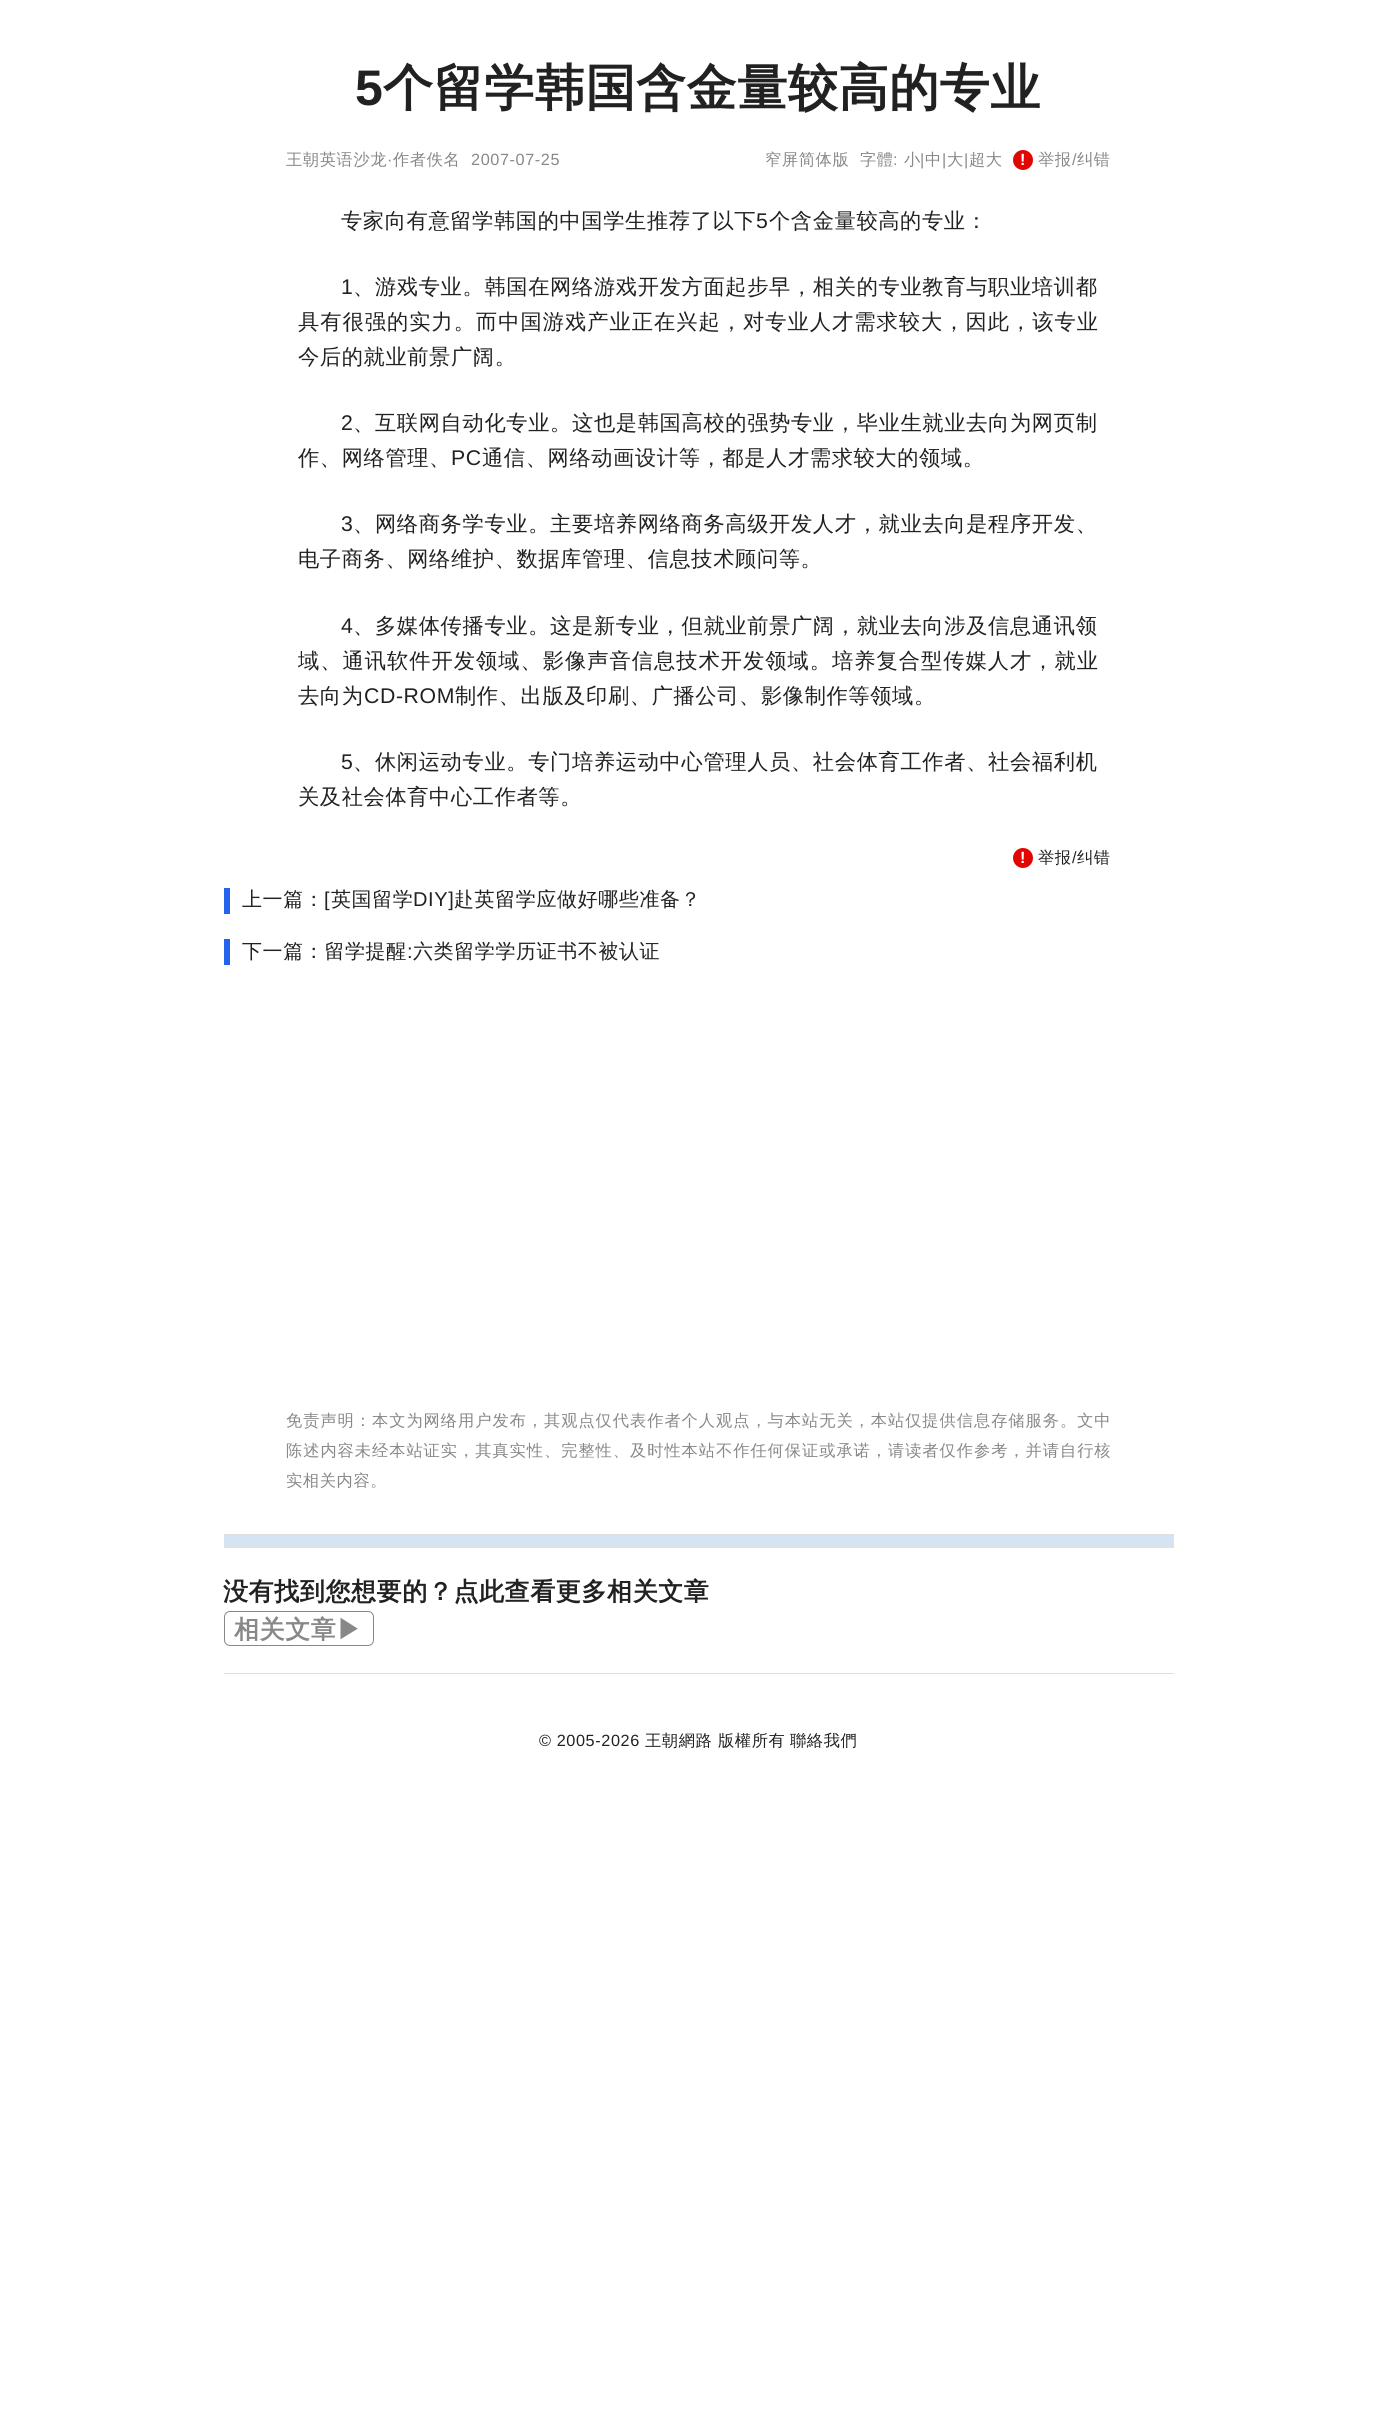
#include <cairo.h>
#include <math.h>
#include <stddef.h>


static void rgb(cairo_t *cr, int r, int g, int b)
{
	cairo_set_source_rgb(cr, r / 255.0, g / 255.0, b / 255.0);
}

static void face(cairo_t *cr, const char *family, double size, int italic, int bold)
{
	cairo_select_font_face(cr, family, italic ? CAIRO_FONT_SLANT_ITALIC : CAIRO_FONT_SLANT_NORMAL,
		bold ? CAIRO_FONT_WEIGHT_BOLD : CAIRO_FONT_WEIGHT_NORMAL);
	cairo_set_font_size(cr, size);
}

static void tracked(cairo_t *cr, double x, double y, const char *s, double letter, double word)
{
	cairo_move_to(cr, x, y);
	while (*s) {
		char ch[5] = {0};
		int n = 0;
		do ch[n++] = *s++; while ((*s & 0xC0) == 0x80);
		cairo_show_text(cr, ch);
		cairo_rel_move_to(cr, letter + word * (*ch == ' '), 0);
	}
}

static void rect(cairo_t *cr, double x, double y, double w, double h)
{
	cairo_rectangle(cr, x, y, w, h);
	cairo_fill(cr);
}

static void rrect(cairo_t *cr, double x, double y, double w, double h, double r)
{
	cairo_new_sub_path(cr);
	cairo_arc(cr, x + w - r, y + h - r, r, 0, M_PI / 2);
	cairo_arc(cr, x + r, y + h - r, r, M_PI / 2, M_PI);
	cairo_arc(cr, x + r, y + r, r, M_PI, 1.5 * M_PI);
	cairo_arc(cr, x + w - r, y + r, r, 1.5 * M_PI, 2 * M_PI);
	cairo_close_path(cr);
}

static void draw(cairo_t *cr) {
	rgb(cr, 255, 255, 255);
	cairo_paint(cr);
	face(cr, "Liberation Sans", 50, 0, 1);
	rgb(cr, 33, 33, 33);
	tracked(cr, 355, 105, "5", 0.6, 0);
	face(cr, "WenQuanYi Zen Hei", 50, 0, 1);
	tracked(cr, 383, 105, "个留学韩国含金量较高的专业", 0.6, 0);
	face(cr, "WenQuanYi Zen Hei Medium", 16.25, 0, 0);
	rgb(cr, 136, 136, 136);
	tracked(cr, 286, 165, "王朝英语沙龙", 0.6, 0);
	face(cr, "Liberation Sans", 16.25, 0, 0);
	tracked(cr, 387, 165, "·", 0.6, 0);
	face(cr, "WenQuanYi Zen Hei Medium", 16.25, 0, 0);
	tracked(cr, 393, 165, "作者佚名", 0.6, 0);
	face(cr, "Liberation Sans", 16.25, 0, 0);
	tracked(cr, 471, 165, "2007-07-25", 0.6, 0);
	face(cr, "WenQuanYi Zen Hei Medium", 16.25, 0, 0);
	tracked(cr, 765, 165, "窄屏简体版", 0.6, 0);
	tracked(cr, 860, 165, "字體", 0.6, 0);
	face(cr, "Liberation Sans", 16.25, 0, 0);
	tracked(cr, 893, 165, ":", 0.6, 0);
	face(cr, "WenQuanYi Zen Hei Medium", 16.25, 0, 0);
	tracked(cr, 904, 165, "小", 0.6, 0);
	face(cr, "Liberation Sans", 16.25, 0, 0);
	tracked(cr, 920, 165, "|", 0.6, 0);
	face(cr, "WenQuanYi Zen Hei Medium", 16.25, 0, 0);
	tracked(cr, 925, 165, "中", 0.6, 0);
	face(cr, "Liberation Sans", 16.25, 0, 0);
	tracked(cr, 942, 165, "|", 0.6, 0);
	face(cr, "WenQuanYi Zen Hei Medium", 16.25, 0, 0);
	tracked(cr, 947, 165, "大", 0.6, 0);
	face(cr, "Liberation Sans", 16.25, 0, 0);
	tracked(cr, 964, 165, "|", 0.6, 0);
	face(cr, "WenQuanYi Zen Hei Medium", 16.25, 0, 0);
	tracked(cr, 969, 165, "超大", 0.6, 0);
	rgb(cr, 225, 6, 2);
	cairo_new_path(cr);
	cairo_arc(cr, 1023, 160, 10, 0, 2 * M_PI);
	cairo_fill(cr);
	face(cr, "Liberation Sans", 16.25, 0, 1);
	rgb(cr, 255, 255, 255);
	tracked(cr, 1020, 165, "!", 0.6, 0);
	face(cr, "WenQuanYi Zen Hei Medium", 16.25, 0, 0);
	rgb(cr, 136, 136, 136);
	tracked(cr, 1038, 165, "举报", 0.6, 0);
	face(cr, "Liberation Sans", 16.25, 0, 0);
	tracked(cr, 1072, 165, "/", 0.6, 0);
	face(cr, "WenQuanYi Zen Hei Medium", 16.25, 0, 0);
	tracked(cr, 1077, 165, "纠错", 0.6, 0);
	face(cr, "WenQuanYi Zen Hei Medium", 21.25, 0, 0);
	rgb(cr, 33, 33, 33);
	tracked(cr, 341, 228, "专家向有意留学韩国的中国学生推荐了以下", 0.6, 0);
	face(cr, "Liberation Sans", 21.25, 0, 0);
	tracked(cr, 756, 228, "5", 0.6, 0);
	face(cr, "WenQuanYi Zen Hei Medium", 21.25, 0, 0);
	tracked(cr, 769, 228, "个含金量较高的专业：", 0.6, 0);
	face(cr, "Liberation Sans", 21.25, 0, 0);
	tracked(cr, 341, 294, "1", 0.65, 0);
	face(cr, "WenQuanYi Zen Hei Medium", 21.25, 0, 0);
	tracked(cr, 353, 294, "、游戏专业。韩国在网络游戏开发方面起步早，相关的专业教育与职业培训都", 0.65, 0);
	tracked(cr, 298, 329, "具有很强的实力。而中国游戏产业正在兴起，对专业人才需求较大，因此，该专业", 1, 0);
	tracked(cr, 298, 364, "今后的就业前景广阔。", 0.6, 0);
	face(cr, "Liberation Sans", 21.25, 0, 0);
	tracked(cr, 341, 430, "2", 0.65, 0);
	face(cr, "WenQuanYi Zen Hei Medium", 21.25, 0, 0);
	tracked(cr, 353, 430, "、互联网自动化专业。这也是韩国高校的强势专业，毕业生就业去向为网页制", 0.65, 0);
	tracked(cr, 298, 465, "作、网络管理、", 0.6, 0);
	face(cr, "Liberation Sans", 21.25, 0, 0);
	tracked(cr, 451, 465, "PC", 0.6, 0);
	face(cr, "WenQuanYi Zen Hei Medium", 21.25, 0, 0);
	tracked(cr, 482, 465, "通信、网络动画设计等，都是人才需求较大的领域。", 0.6, 0);
	face(cr, "Liberation Sans", 21.25, 0, 0);
	tracked(cr, 341, 531, "3", 0.65, 0);
	face(cr, "WenQuanYi Zen Hei Medium", 21.25, 0, 0);
	tracked(cr, 353, 531, "、网络商务学专业。主要培养网络商务高级开发人才，就业去向是程序开发、", 0.65, 0);
	tracked(cr, 298, 566, "电子商务、网络维护、数据库管理、信息技术顾问等。", 0.6, 0);
	face(cr, "Liberation Sans", 21.25, 0, 0);
	tracked(cr, 341, 633, "4", 0.65, 0);
	face(cr, "WenQuanYi Zen Hei Medium", 21.25, 0, 0);
	tracked(cr, 353, 633, "、多媒体传播专业。这是新专业，但就业前景广阔，就业去向涉及信息通讯领", 0.65, 0);
	tracked(cr, 298, 668, "域、通讯软件开发领域、影像声音信息技术开发领域。培养复合型传媒人才，就业", 1, 0);
	tracked(cr, 298, 703, "去向为", 0.6, 0);
	face(cr, "Liberation Sans", 21.25, 0, 0);
	tracked(cr, 364, 703, "CD-ROM", 0.6, 0);
	face(cr, "WenQuanYi Zen Hei Medium", 21.25, 0, 0);
	tracked(cr, 455, 703, "制作、出版及印刷、广播公司、影像制作等领域。", 0.6, 0);
	face(cr, "Liberation Sans", 21.25, 0, 0);
	tracked(cr, 341, 769, "5", 0.65, 0);
	face(cr, "WenQuanYi Zen Hei Medium", 21.25, 0, 0);
	tracked(cr, 353, 769, "、休闲运动专业。专门培养运动中心管理人员、社会体育工作者、社会福利机", 0.65, 0);
	tracked(cr, 298, 804, "关及社会体育中心工作者等。", 0.6, 0);
	rgb(cr, 225, 6, 2);
	cairo_new_path(cr);
	cairo_arc(cr, 1023, 858, 10, 0, 2 * M_PI);
	cairo_fill(cr);
	face(cr, "Liberation Sans", 16.25, 0, 1);
	rgb(cr, 255, 255, 255);
	tracked(cr, 1020, 863, "!", 0.6, 0);
	face(cr, "WenQuanYi Zen Hei Medium", 16.25, 0, 0);
	rgb(cr, 33, 33, 33);
	tracked(cr, 1038, 863, "举报", 0.6, 0);
	face(cr, "Liberation Sans", 16.25, 0, 0);
	tracked(cr, 1072, 863, "/", 0.6, 0);
	face(cr, "WenQuanYi Zen Hei Medium", 16.25, 0, 0);
	tracked(cr, 1077, 863, "纠错", 0.6, 0);
	rgb(cr, 37, 99, 235);
	rect(cr, 224, 888, 6, 26);
	face(cr, "WenQuanYi Zen Hei Medium", 20, 0, 0);
	rgb(cr, 33, 33, 33);
	tracked(cr, 242, 906, "上一篇：", 0.6, 0);
	face(cr, "Liberation Sans", 20, 0, 0);
	tracked(cr, 324, 906, "[", 0.6, 0);
	face(cr, "WenQuanYi Zen Hei Medium", 20, 0, 0);
	tracked(cr, 331, 906, "英国留学", 0.6, 0);
	face(cr, "Liberation Sans", 20, 0, 0);
	tracked(cr, 413, 906, "DIY]", 0.6, 0);
	face(cr, "WenQuanYi Zen Hei Medium", 20, 0, 0);
	tracked(cr, 454, 906, "赴英留学应做好哪些准备？", 0.6, 0);
	rgb(cr, 37, 99, 235);
	rect(cr, 224, 939, 6, 26);
	rgb(cr, 33, 33, 33);
	tracked(cr, 242, 958, "下一篇：留学提醒", 0.6, 0);
	face(cr, "Liberation Sans", 20, 0, 0);
	tracked(cr, 407, 958, ":", 0.6, 0);
	face(cr, "WenQuanYi Zen Hei Medium", 20, 0, 0);
	tracked(cr, 413, 958, "六类留学学历证书不被认证", 0.6, 0);
	face(cr, "WenQuanYi Zen Hei Medium", 16.25, 0, 0);
	rgb(cr, 136, 136, 136);
	tracked(cr, 286, 1426, "免责声明：本文为网络用户发布，其观点仅代表作者个人观点，与本站无关，本站仅提供信息存储服务。文中", 0.95, 0);
	tracked(cr, 286, 1456, "陈述内容未经本站证实，其真实性、完整性、及时性本站不作任何保证或承诺，请读者仅作参考，并请自行核", 0.95, 0);
	tracked(cr, 286, 1486, "实相关内容。", 0.6, 0);
	rgb(cr, 212, 228, 244);
	rect(cr, 224, 1535, 950, 13);
	rgb(cr, 224, 224, 224);
	rect(cr, 224, 1534, 950, 1);
	rect(cr, 224, 1546, 950, 1);
	rect(cr, 224, 1673, 950, 1);
	face(cr, "WenQuanYi Zen Hei", 25, 0, 1);
	rgb(cr, 33, 33, 33);
	tracked(cr, 223, 1600, "没有找到您想要的？点此查看更多相关文章", 0.6, 0);
	rrect(cr, 224.5, 1611.5, 149, 34, 5.5);
	rgb(cr, 136, 136, 136);
	cairo_set_line_width(cr, 1);
	cairo_stroke(cr);
	tracked(cr, 234, 1638, "相关文章▶", 0.6, 0);
	face(cr, "Liberation Sans", 16.25, 0, 0);
	rgb(cr, 33, 33, 33);
	tracked(cr, 539, 1746, "© 2005-2026", 0.6, 0);
	face(cr, "WenQuanYi Zen Hei Medium", 16.25, 0, 0);
	tracked(cr, 645, 1746, "王朝網路", 0.6, 0);
	tracked(cr, 718, 1746, "版權所有", 0.6, 0);
	tracked(cr, 790, 1746, "聯絡我們", 0.6, 0);
}

int main(void) {
	cairo_surface_t *surface = cairo_image_surface_create(CAIRO_FORMAT_RGB24, 1396, 2433);
	cairo_t *cr = cairo_create(surface);
	cairo_font_options_t *options = cairo_font_options_create();
	cairo_font_options_set_hint_metrics(options, CAIRO_HINT_METRICS_OFF);
	cairo_font_options_set_hint_style(options, CAIRO_HINT_STYLE_NONE);
	cairo_set_font_options(cr, options);
	cairo_set_miter_limit(cr, 4);
	draw(cr);
	cairo_surface_write_to_png(surface, "render.png");
	cairo_font_options_destroy(options);
	cairo_destroy(cr);
	cairo_surface_destroy(surface);
	return 0;
}
